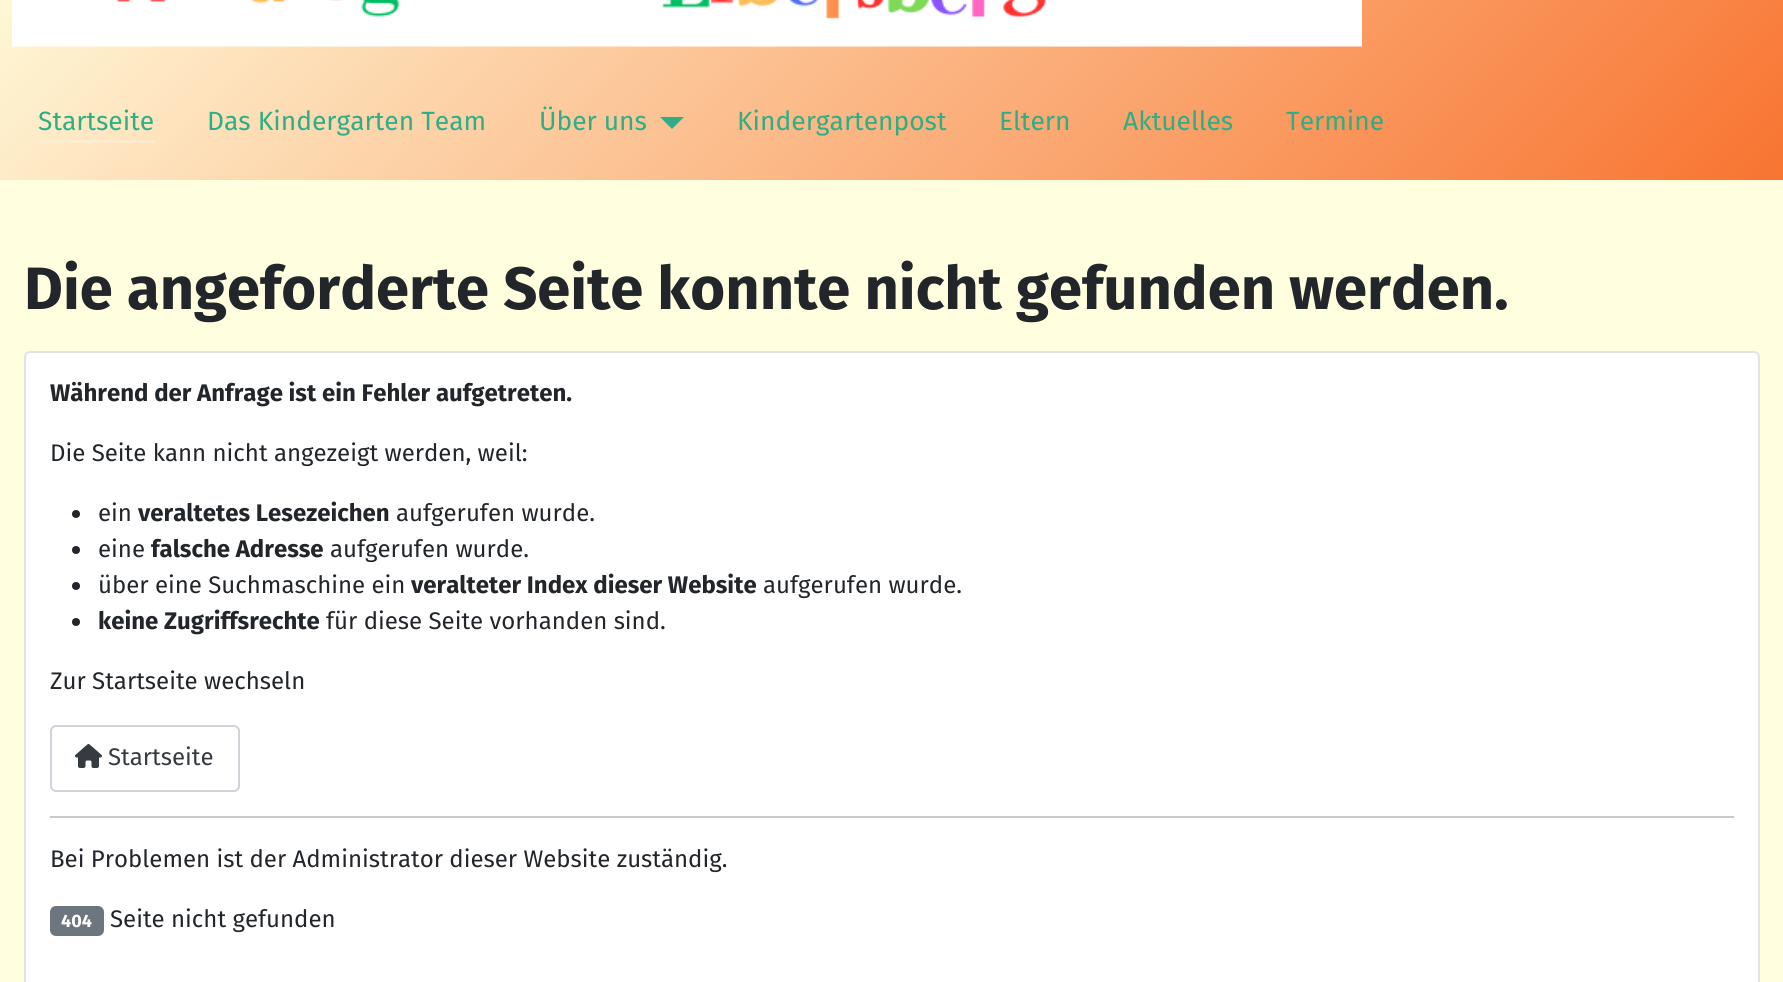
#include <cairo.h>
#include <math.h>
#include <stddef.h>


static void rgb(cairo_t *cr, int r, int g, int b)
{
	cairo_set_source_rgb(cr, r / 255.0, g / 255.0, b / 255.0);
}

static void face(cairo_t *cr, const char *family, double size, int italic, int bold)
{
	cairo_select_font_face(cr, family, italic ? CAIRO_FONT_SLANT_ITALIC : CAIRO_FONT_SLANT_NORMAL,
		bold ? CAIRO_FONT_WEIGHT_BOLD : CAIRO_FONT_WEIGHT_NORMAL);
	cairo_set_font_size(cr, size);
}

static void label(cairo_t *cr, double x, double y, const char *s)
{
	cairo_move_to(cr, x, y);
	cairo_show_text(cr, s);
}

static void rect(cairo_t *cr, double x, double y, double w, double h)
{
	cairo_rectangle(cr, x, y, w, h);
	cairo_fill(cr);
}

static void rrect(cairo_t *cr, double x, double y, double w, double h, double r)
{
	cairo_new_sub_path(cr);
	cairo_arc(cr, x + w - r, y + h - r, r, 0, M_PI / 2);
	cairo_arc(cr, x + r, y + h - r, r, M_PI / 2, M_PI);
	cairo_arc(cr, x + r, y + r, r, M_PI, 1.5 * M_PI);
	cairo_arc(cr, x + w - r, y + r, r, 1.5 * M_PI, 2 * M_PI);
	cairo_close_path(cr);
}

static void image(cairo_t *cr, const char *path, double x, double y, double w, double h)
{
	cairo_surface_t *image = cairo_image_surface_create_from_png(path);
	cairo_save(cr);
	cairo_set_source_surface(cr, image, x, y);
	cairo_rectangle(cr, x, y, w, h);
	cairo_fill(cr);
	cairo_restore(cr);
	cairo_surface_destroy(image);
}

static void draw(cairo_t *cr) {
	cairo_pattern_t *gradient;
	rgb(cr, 255, 255, 224);
	cairo_paint(cr);
	gradient = cairo_pattern_create_linear(370, -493, 1413, 550);
	cairo_pattern_add_color_stop_rgba(gradient, 0, 1, 1, 0.878, 1);
	cairo_pattern_add_color_stop_rgba(gradient, 1, 0.973, 0.455, 0.192, 1);
	cairo_set_source(cr, gradient);
	cairo_pattern_destroy(gradient);
	rect(cr, 0, 0, 1783, 180);
	gradient = cairo_pattern_create_linear(370, -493, 1413, 550);
	cairo_pattern_add_color_stop_rgba(gradient, 0, 1, 1, 0.902, 1);
	cairo_pattern_add_color_stop_rgba(gradient, 1, 0.976, 0.565, 0.353, 1);
	cairo_set_source(cr, gradient);
	cairo_pattern_destroy(gradient);
	rect(cr, 39, 140, 116, 3);
	image(cr, "image0.png", 12, 0, 1350, 47);
	face(cr, "Fira Sans", 26.4, 0, 0);
	rgb(cr, 45, 174, 132);
	label(cr, 38, 130, "Startseite");
	label(cr, 207, 130, "Das Kindergarten Team");
	label(cr, 539, 130, "Über uns");
	cairo_new_path(cr);
	cairo_move_to(cr, 660, 117);
	cairo_line_to(cr, 684, 117);
	cairo_line_to(cr, 672, 129);
	cairo_close_path(cr);
	cairo_fill(cr);
	label(cr, 737, 130, "Kindergartenpost");
	label(cr, 999, 130, "Eltern");
	label(cr, 1123, 130, "Aktuelles");
	label(cr, 1286, 130, "Termine");
	face(cr, "Fira Sans", 59.75, 0, 1);
	rgb(cr, 34, 38, 42);
	label(cr, 24, 309, "Die angeforderte Seite konnte nicht gefunden werden.");
	rgb(cr, 255, 255, 255);
	rrect(cr, 25, 352, 1734, 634, 5);
	cairo_fill_preserve(cr);
	rgb(cr, 223, 227, 231);
	cairo_stroke(cr);
	face(cr, "Fira Sans", 24, 0, 1);
	rgb(cr, 34, 38, 42);
	label(cr, 50, 401, "Während der Anfrage ist ein Fehler aufgetreten.");
	face(cr, "Fira Sans", 24, 0, 0);
	label(cr, 50, 461, "Die Seite kann nicht angezeigt werden, weil:");
	cairo_new_path(cr);
	cairo_arc(cr, 76, 514, 4, 0, 2 * M_PI);
	cairo_fill(cr);
	label(cr, 98, 521, "ein");
	face(cr, "Fira Sans", 24, 0, 1);
	label(cr, 138, 521, "veraltetes Lesezeichen");
	face(cr, "Fira Sans", 24, 0, 0);
	label(cr, 396, 521, "aufgerufen wurde.");
	cairo_new_path(cr);
	cairo_arc(cr, 76, 550, 4, 0, 2 * M_PI);
	cairo_fill(cr);
	label(cr, 98, 557, "eine");
	face(cr, "Fira Sans", 24, 0, 1);
	label(cr, 151, 557, "falsche Adresse");
	face(cr, "Fira Sans", 24, 0, 0);
	label(cr, 330, 557, "aufgerufen wurde.");
	cairo_new_path(cr);
	cairo_arc(cr, 76, 586, 4, 0, 2 * M_PI);
	cairo_fill(cr);
	label(cr, 98, 593, "über eine Suchmaschine ein");
	face(cr, "Fira Sans", 24, 0, 1);
	label(cr, 411, 593, "veralteter Index dieser Website");
	face(cr, "Fira Sans", 24, 0, 0);
	label(cr, 763, 593, "aufgerufen wurde.");
	cairo_new_path(cr);
	cairo_arc(cr, 76, 622, 4, 0, 2 * M_PI);
	cairo_fill(cr);
	face(cr, "Fira Sans", 24, 0, 1);
	label(cr, 98, 629, "keine Zugriffsrechte");
	face(cr, "Fira Sans", 24, 0, 0);
	label(cr, 326, 629, "für diese Seite vorhanden sind.");
	label(cr, 50, 689, "Zur Startseite wechseln");
	rrect(cr, 51, 726, 188, 65, 5);
	rgb(cr, 206, 212, 218);
	cairo_stroke(cr);
	image(cr, "image1.png", 75, 744, 27, 24);
	rgb(cr, 53, 59, 65);
	label(cr, 108, 765, "Startseite");
	rgb(cr, 200, 201, 202);
	rect(cr, 50, 816, 1684, 2);
	rgb(cr, 34, 38, 42);
	label(cr, 50, 867, "Bei Problemen ist der Administrator dieser Website zuständig.");
	rgb(cr, 109, 117, 126);
	rrect(cr, 50, 906, 54, 30, 6);
	cairo_fill(cr);
	face(cr, "Fira Sans", 18, 0, 1);
	rgb(cr, 255, 255, 255);
	label(cr, 61, 927, "404");
	face(cr, "Fira Sans", 24, 0, 0);
	rgb(cr, 34, 38, 42);
	label(cr, 110, 927, "Seite nicht gefunden");
}

int main(void) {
	cairo_surface_t *surface = cairo_image_surface_create(CAIRO_FORMAT_RGB24, 1783, 982);
	cairo_t *cr = cairo_create(surface);
	cairo_font_options_t *options = cairo_font_options_create();
	cairo_font_options_set_hint_metrics(options, CAIRO_HINT_METRICS_OFF);
	cairo_font_options_set_hint_style(options, CAIRO_HINT_STYLE_NONE);
	cairo_set_font_options(cr, options);
	cairo_set_miter_limit(cr, 4);
	draw(cr);
	cairo_surface_write_to_png(surface, "render.png");
	cairo_font_options_destroy(options);
	cairo_destroy(cr);
	cairo_surface_destroy(surface);
	return 0;
}
